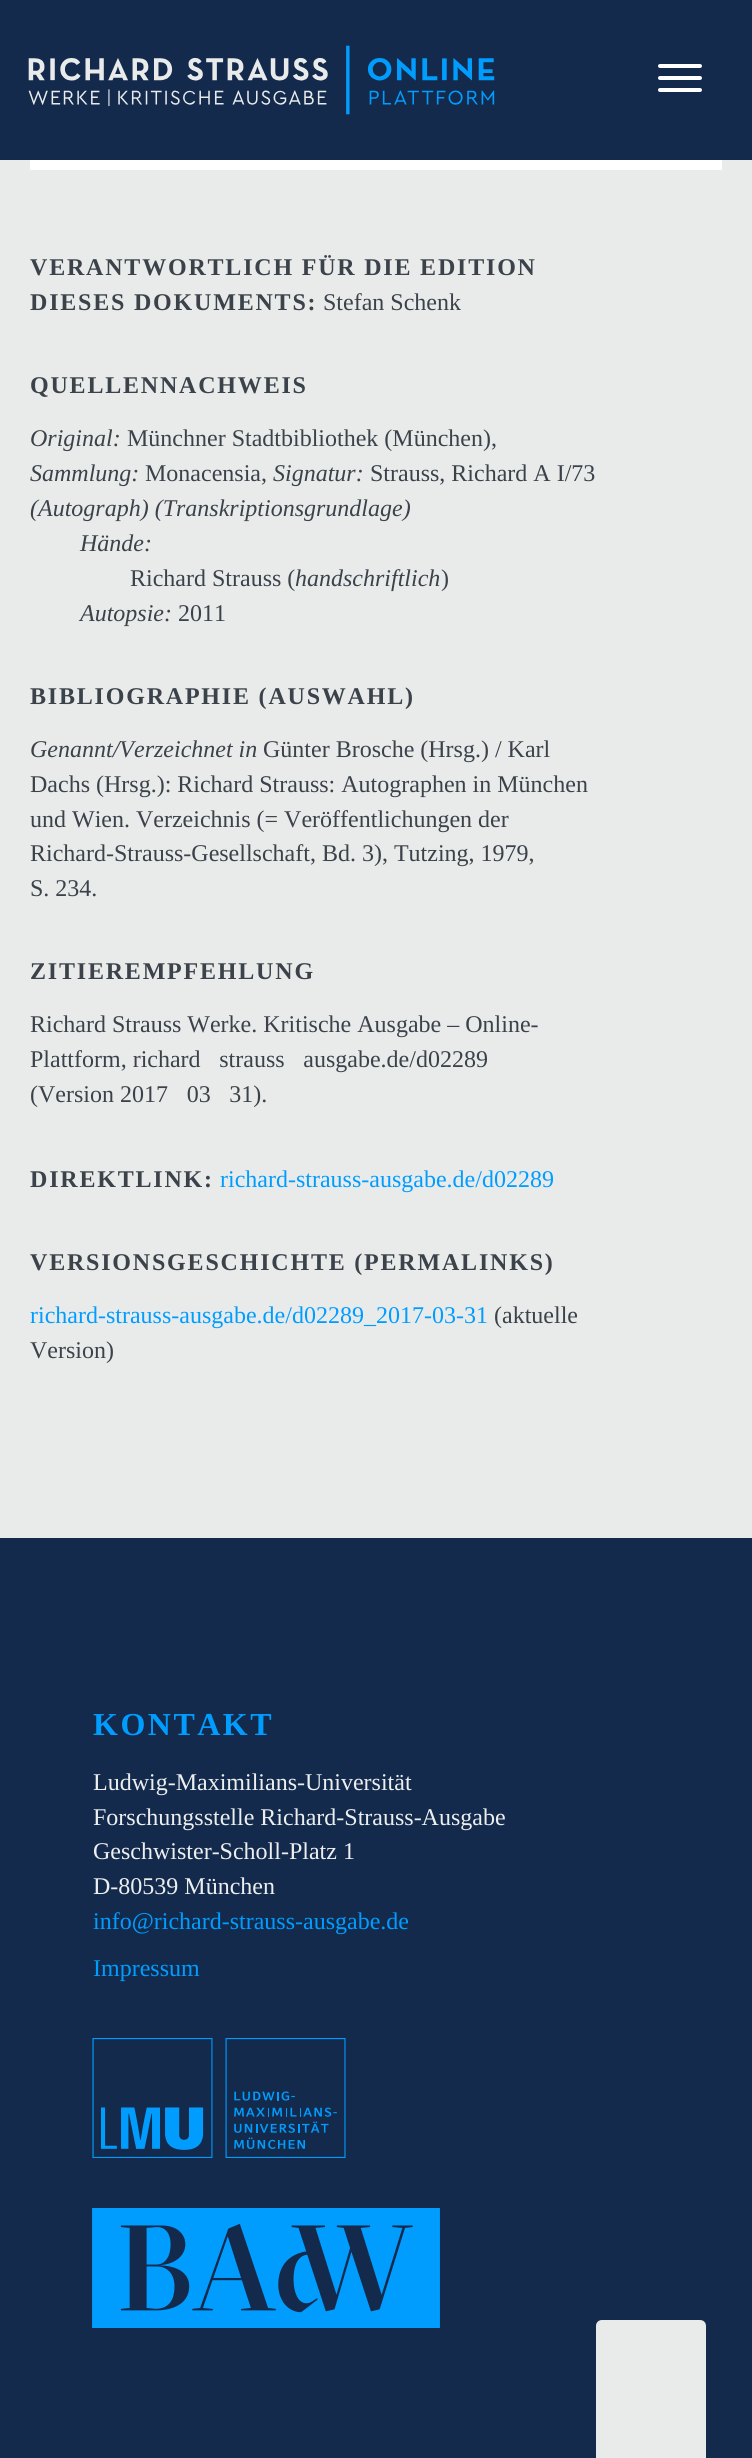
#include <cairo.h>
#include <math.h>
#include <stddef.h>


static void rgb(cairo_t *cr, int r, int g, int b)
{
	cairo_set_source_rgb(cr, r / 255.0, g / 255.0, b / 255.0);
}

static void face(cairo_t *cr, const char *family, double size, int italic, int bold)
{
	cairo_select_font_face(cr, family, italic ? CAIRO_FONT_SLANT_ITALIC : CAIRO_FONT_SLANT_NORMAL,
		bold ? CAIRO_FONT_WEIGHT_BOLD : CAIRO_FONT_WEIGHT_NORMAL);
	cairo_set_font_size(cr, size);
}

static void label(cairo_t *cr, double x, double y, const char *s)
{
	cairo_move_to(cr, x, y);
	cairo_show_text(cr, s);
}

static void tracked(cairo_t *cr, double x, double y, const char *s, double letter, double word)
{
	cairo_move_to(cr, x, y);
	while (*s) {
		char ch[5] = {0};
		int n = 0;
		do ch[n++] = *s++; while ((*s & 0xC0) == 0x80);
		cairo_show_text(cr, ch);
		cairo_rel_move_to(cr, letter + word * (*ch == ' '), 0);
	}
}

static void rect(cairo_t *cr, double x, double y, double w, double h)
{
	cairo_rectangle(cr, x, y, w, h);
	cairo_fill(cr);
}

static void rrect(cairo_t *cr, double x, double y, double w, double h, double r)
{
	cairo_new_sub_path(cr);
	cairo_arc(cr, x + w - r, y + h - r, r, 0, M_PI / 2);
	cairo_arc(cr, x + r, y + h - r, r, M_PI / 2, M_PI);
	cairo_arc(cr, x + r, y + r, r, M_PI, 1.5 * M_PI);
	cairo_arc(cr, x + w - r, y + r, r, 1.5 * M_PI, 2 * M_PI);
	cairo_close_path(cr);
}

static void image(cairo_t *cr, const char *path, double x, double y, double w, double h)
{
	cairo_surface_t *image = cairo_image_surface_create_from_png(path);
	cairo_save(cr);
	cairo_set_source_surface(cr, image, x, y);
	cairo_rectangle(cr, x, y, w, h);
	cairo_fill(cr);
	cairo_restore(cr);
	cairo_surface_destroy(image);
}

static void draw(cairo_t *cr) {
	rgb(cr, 19, 42, 77);
	cairo_paint(cr);
	image(cr, "image0.png", 28, 45, 467, 70);
	rgb(cr, 255, 255, 255);
	rrect(cr, 658, 64, 44, 4, 2);
	cairo_fill(cr);
	rrect(cr, 658, 76, 44, 4, 2);
	cairo_fill(cr);
	rrect(cr, 658, 88, 44, 4, 2);
	cairo_fill(cr);
	rgb(cr, 233, 235, 235);
	rect(cr, 0, 160, 752, 1378);
	rgb(cr, 255, 255, 255);
	rect(cr, 30, 160, 692, 10);
	face(cr, "Liberation Serif", 24, 0, 1);
	rgb(cr, 59, 66, 74);
	tracked(cr, 30, 275, "VERANTWORTLICH FÜR DIE EDITION", 1.8, 0);
	tracked(cr, 30, 310, "DIESES DOKUMENTS:", 1.8, 0);
	face(cr, "Liberation Serif", 24, 0, 0);
	label(cr, 323, 310, "Stefan Schenk");
	face(cr, "Liberation Serif", 24, 0, 1);
	tracked(cr, 30, 393, "QUELLENNACHWEIS", 1.8, 0);
	face(cr, "Liberation Serif", 24, 1, 0);
	label(cr, 30, 446, "Original:");
	face(cr, "Liberation Serif", 24, 0, 0);
	label(cr, 127, 446, "Münchner Stadtbibliothek (München),");
	face(cr, "Liberation Serif", 24, 1, 0);
	label(cr, 30, 481, "Sammlung:");
	face(cr, "Liberation Serif", 24, 0, 0);
	label(cr, 145, 481, "Monacensia,");
	face(cr, "Liberation Serif", 24, 1, 0);
	label(cr, 273, 481, "Signatur:");
	face(cr, "Liberation Serif", 24, 0, 0);
	label(cr, 370, 481, "Strauss, Richard A I/73");
	face(cr, "Liberation Serif", 24, 1, 0);
	label(cr, 30, 516, "(Autograph) (Transkriptionsgrundlage)");
	label(cr, 80, 551, "Hände:");
	face(cr, "Liberation Serif", 24, 0, 0);
	label(cr, 130, 586, "Richard Strauss (");
	face(cr, "Liberation Serif", 24, 1, 0);
	label(cr, 295, 586, "handschriftlich");
	face(cr, "Liberation Serif", 24, 0, 0);
	label(cr, 441, 586, ")");
	face(cr, "Liberation Serif", 24, 1, 0);
	label(cr, 80, 621, "Autopsie:");
	face(cr, "Liberation Serif", 24, 0, 0);
	label(cr, 178, 621, "2011");
	face(cr, "Liberation Serif", 24, 0, 1);
	tracked(cr, 30, 704, "BIBLIOGRAPHIE (AUSWAHL)", 1.8, 0);
	face(cr, "Liberation Serif", 24, 1, 0);
	label(cr, 30, 757, "Genannt/Verzeichnet in");
	face(cr, "Liberation Serif", 24, 0, 0);
	label(cr, 263, 757, "Günter Brosche (Hrsg.) / Karl");
	label(cr, 30, 792, "Dachs (Hrsg.): Richard Strauss: Autographen in München");
	label(cr, 30, 827, "und Wien. Verzeichnis (= Veröffentlichungen der");
	label(cr, 30, 861, "Richard-Strauss-Gesellschaft, Bd. 3), Tutzing, 1979,");
	label(cr, 30, 896, "S. 234.");
	face(cr, "Liberation Serif", 24, 0, 1);
	tracked(cr, 30, 979, "ZITIEREMPFEHLUNG", 1.8, 0);
	face(cr, "Liberation Serif", 24, 0, 0);
	label(cr, 30, 1032, "Richard Strauss Werke. Kritische Ausgabe – Online-");
	label(cr, 30, 1067, "Plattform, richard‑strauss‑ausgabe.de/d02289");
	label(cr, 30, 1102, "(Version 2017‑03‑31).");
	face(cr, "Liberation Serif", 24, 0, 1);
	tracked(cr, 30, 1187, "DIREKTLINK:", 1.8, 0);
	face(cr, "Liberation Serif", 24, 0, 0);
	rgb(cr, 0, 157, 255);
	label(cr, 220, 1187, "richard-strauss-ausgabe.de/d02289");
	face(cr, "Liberation Serif", 24, 0, 1);
	rgb(cr, 59, 66, 74);
	tracked(cr, 30, 1270, "VERSIONSGESCHICHTE (PERMALINKS)", 1.8, 0);
	face(cr, "Liberation Serif", 24, 0, 0);
	rgb(cr, 0, 157, 255);
	label(cr, 30, 1323, "richard-strauss-ausgabe.de/d02289_2017-03-31");
	rgb(cr, 59, 66, 74);
	label(cr, 494, 1323, "(aktuelle");
	label(cr, 30, 1358, "Version)");
	face(cr, "Liberation Serif", 32, 0, 1);
	rgb(cr, 0, 157, 255);
	tracked(cr, 93, 1735, "KONTAKT", 2.5, 0);
	face(cr, "Liberation Serif", 24, 0, 0);
	rgb(cr, 237, 239, 239);
	label(cr, 93, 1790, "Ludwig-Maximilians-Universität");
	label(cr, 93, 1825, "Forschungsstelle Richard-Strauss-Ausgabe");
	label(cr, 93, 1859, "Geschwister-Scholl-Platz 1");
	label(cr, 93, 1894, "D-80539 München");
	rgb(cr, 0, 157, 255);
	label(cr, 93, 1929, "info@richard-strauss-ausgabe.de");
	label(cr, 93, 1976, "Impressum");
	image(cr, "image1.png", 92, 2038, 254, 120);
	image(cr, "image2.png", 92, 2208, 348, 120);
	rgb(cr, 233, 235, 235);
	cairo_new_path(cr);
	cairo_move_to(cr, 602, 2320);
	cairo_line_to(cr, 700, 2320);
	cairo_curve_to(cr, 703.5, 2320, 706, 2322.5, 706, 2326);
	cairo_line_to(cr, 706, 2458);
	cairo_line_to(cr, 596, 2458);
	cairo_line_to(cr, 596, 2326);
	cairo_curve_to(cr, 596, 2322.5, 598.5, 2320, 602, 2320);
	cairo_close_path(cr);
	cairo_fill(cr);
}

int main(void) {
	cairo_surface_t *surface = cairo_image_surface_create(CAIRO_FORMAT_RGB24, 752, 2458);
	cairo_t *cr = cairo_create(surface);
	cairo_font_options_t *options = cairo_font_options_create();
	cairo_font_options_set_hint_metrics(options, CAIRO_HINT_METRICS_OFF);
	cairo_font_options_set_hint_style(options, CAIRO_HINT_STYLE_NONE);
	cairo_set_font_options(cr, options);
	cairo_set_miter_limit(cr, 4);
	draw(cr);
	cairo_surface_write_to_png(surface, "render.png");
	cairo_font_options_destroy(options);
	cairo_destroy(cr);
	cairo_surface_destroy(surface);
	return 0;
}
